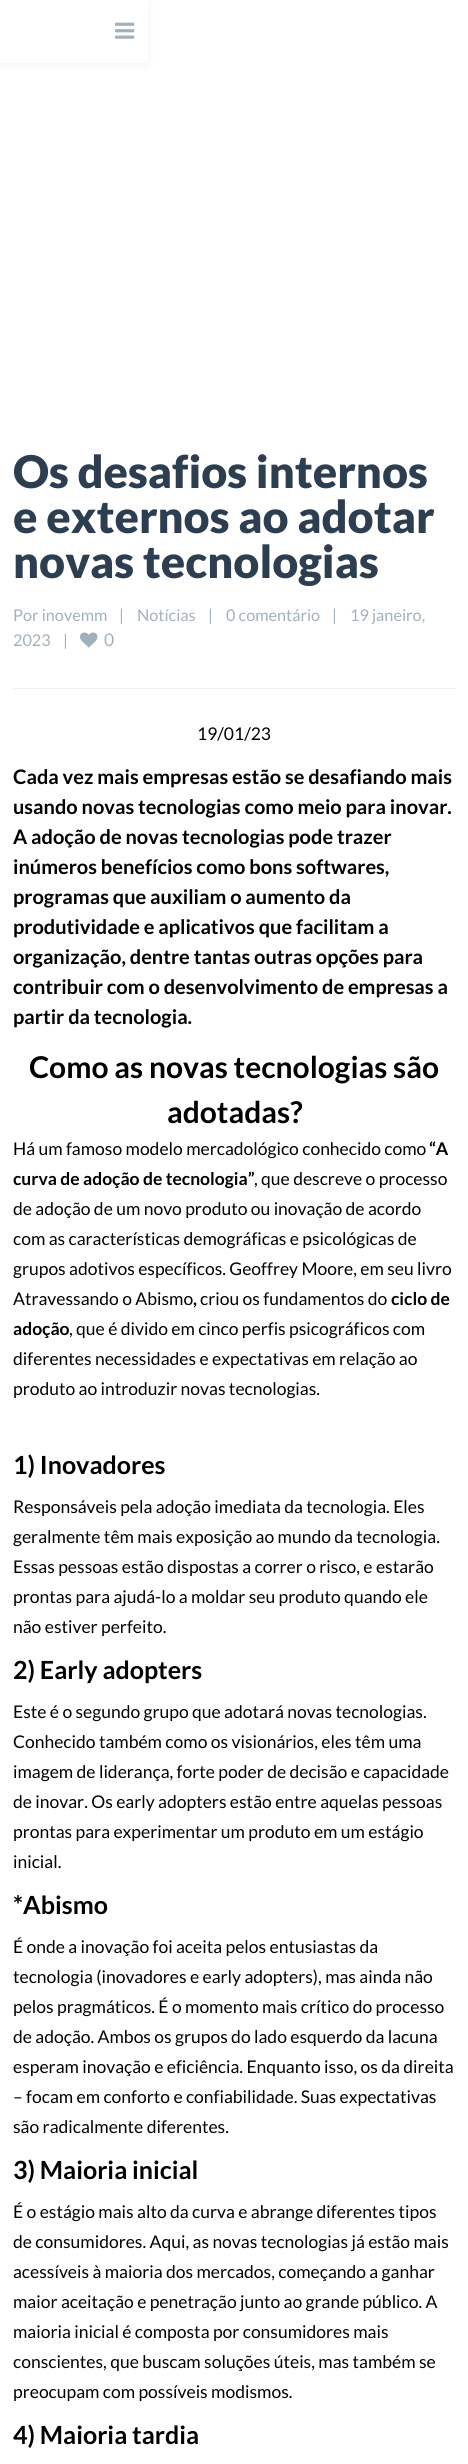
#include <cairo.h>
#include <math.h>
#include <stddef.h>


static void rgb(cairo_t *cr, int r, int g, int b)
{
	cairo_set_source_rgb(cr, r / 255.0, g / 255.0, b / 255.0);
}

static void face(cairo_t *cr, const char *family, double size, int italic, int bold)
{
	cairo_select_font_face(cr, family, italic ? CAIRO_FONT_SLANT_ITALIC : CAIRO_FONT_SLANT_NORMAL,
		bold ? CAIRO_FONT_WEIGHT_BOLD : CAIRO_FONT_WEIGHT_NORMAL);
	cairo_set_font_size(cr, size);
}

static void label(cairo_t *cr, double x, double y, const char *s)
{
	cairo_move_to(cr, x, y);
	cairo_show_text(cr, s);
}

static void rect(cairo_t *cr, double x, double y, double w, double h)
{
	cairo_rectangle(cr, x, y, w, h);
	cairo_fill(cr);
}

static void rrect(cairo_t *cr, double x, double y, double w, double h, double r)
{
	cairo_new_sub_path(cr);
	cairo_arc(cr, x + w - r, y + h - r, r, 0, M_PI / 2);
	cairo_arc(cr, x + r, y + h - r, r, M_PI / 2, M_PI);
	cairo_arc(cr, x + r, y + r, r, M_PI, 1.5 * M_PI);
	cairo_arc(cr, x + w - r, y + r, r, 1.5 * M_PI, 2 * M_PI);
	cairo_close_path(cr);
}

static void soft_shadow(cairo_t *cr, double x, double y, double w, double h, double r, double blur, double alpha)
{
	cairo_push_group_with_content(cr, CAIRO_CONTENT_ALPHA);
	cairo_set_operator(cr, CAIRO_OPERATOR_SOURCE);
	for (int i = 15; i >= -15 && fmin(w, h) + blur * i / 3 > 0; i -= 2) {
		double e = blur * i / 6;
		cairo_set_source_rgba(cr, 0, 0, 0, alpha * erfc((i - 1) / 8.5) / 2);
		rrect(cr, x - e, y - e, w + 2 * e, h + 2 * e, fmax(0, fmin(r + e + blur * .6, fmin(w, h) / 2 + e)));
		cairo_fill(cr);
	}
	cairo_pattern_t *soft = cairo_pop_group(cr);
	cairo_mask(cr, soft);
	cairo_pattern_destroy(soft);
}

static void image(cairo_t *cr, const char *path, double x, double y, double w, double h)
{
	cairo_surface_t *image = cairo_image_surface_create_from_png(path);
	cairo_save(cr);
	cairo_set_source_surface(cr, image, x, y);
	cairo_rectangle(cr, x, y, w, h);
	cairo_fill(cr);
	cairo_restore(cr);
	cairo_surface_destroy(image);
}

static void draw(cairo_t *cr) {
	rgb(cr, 255, 255, 255);
	cairo_paint(cr);
	rgb(cr, 0, 0, 0);
	soft_shadow(cr, 0, 3, 148, 62, 0, 4, 0.05);
	rgb(cr, 255, 255, 255);
	rect(cr, 0, 0, 148, 63);
	image(cr, "image0.png", 115, 22, 20, 17);
	face(cr, "Lato Black", 45, 0, 0);
	rgb(cr, 44, 62, 80);
	label(cr, 13, 488, "Os desafios internos");
	label(cr, 13, 533, "e externos ao adotar");
	label(cr, 13, 578, "novas tecnologias");
	rgb(cr, 236, 240, 241);
	rect(cr, 13, 688, 443, 1);
	face(cr, "Lato", 16.25, 0, 0);
	rgb(cr, 161, 177, 188);
	label(cr, 13, 621, "Por inovemm");
	label(cr, 119, 621, "|");
	label(cr, 137, 621, "Notícias");
	label(cr, 208, 621, "|");
	label(cr, 226, 621, "0 comentário");
	label(cr, 332, 621, "|");
	label(cr, 350, 621, "19 janeiro,");
	label(cr, 13, 646, "2023");
	label(cr, 63, 646, "|");
	image(cr, "image1.png", 80, 632, 18, 16);
	face(cr, "Lato", 17.5, 0, 0);
	label(cr, 104, 646, "0");
	rgb(cr, 0, 0, 0);
	label(cr, 197, 740, "19/01/23");
	face(cr, "Lato", 20, 0, 1);
	label(cr, 13, 784, "Cada vez mais empresas estão se desafiando mais");
	label(cr, 13, 814, "usando novas tecnologias como meio para inovar.");
	label(cr, 13, 844, "A adoção de novas tecnologias pode trazer");
	label(cr, 13, 874, "inúmeros benefícios como bons softwares,");
	label(cr, 13, 904, "programas que auxiliam o aumento da");
	label(cr, 13, 934, "produtividade e aplicativos que facilitam a");
	label(cr, 13, 964, "organização, dentre tantas outras opções para");
	label(cr, 13, 994, "contribuir com o desenvolvimento de empresas a");
	label(cr, 13, 1024, "partir da tecnologia.");
	face(cr, "Lato", 30, 0, 1);
	label(cr, 29, 1078, "Como as novas tecnologias são");
	label(cr, 167, 1123, "adotadas?");
	face(cr, "Lato", 17.5, 0, 0);
	label(cr, 13, 1155, "Há um famoso modelo mercadológico conhecido como");
	face(cr, "Lato", 17.5, 0, 1);
	label(cr, 429, 1155, "“A");
	label(cr, 13, 1185, "curva de adoção de tecnologia”");
	face(cr, "Lato", 17.5, 0, 0);
	label(cr, 254, 1185, ", que descreve o processo");
	label(cr, 13, 1215, "de adoção de um novo produto ou inovação de acordo");
	label(cr, 13, 1245, "com as características demográficas e psicológicas de");
	label(cr, 13, 1275, "grupos adotivos específicos. Geoffrey Moore, em seu livro");
	label(cr, 13, 1305, "Atravessando o Abismo");
	face(cr, "Lato", 17.5, 0, 1);
	label(cr, 193, 1305, ",");
	face(cr, "Lato", 17.5, 0, 0);
	label(cr, 200, 1305, "criou os fundamentos do");
	face(cr, "Lato", 17.5, 0, 1);
	label(cr, 391, 1305, "ciclo de");
	label(cr, 13, 1335, "adoção");
	face(cr, "Lato", 17.5, 0, 0);
	label(cr, 69, 1335, ", que é divido em cinco perfis psicográficos com");
	label(cr, 13, 1365, "diferentes necessidades e expectativas em relação ao");
	label(cr, 13, 1395, "produto ao introduzir novas tecnologias.");
	face(cr, "Lato", 25, 0, 1);
	label(cr, 13, 1474, "1) Inovadores");
	face(cr, "Lato", 17.5, 0, 0);
	label(cr, 13, 1513, "Responsáveis pela adoção imediata da tecnologia. Eles");
	label(cr, 13, 1543, "geralmente têm mais exposição ao mundo da tecnologia.");
	label(cr, 13, 1573, "Essas pessoas estão dispostas a correr o risco, e estarão");
	label(cr, 13, 1603, "prontas para ajudá-lo a moldar seu produto quando ele");
	label(cr, 13, 1633, "não estiver perfeito.");
	face(cr, "Lato", 25, 0, 1);
	label(cr, 13, 1679, "2) Early adopters");
	face(cr, "Lato", 17.5, 0, 0);
	label(cr, 13, 1718, "Este é o segundo grupo que adotará novas tecnologias.");
	label(cr, 13, 1748, "Conhecido também como os visionários, eles têm uma");
	label(cr, 13, 1778, "imagem de liderança, forte poder de decisão e capacidade");
	label(cr, 13, 1808, "de inovar. Os early adopters estão entre aquelas pessoas");
	label(cr, 13, 1838, "prontas para experimentar um produto em um estágio");
	label(cr, 13, 1868, "inicial.");
	face(cr, "Lato", 25, 0, 1);
	label(cr, 13, 1914, "*Abismo");
	face(cr, "Lato", 17.5, 0, 0);
	label(cr, 13, 1953, "É onde a inovação foi aceita pelos entusiastas da");
	label(cr, 13, 1983, "tecnologia (inovadores e early adopters), mas ainda não");
	label(cr, 13, 2013, "pelos pragmáticos. É o momento mais crítico do processo");
	label(cr, 13, 2043, "de adoção. Ambos os grupos do lado esquerdo da lacuna");
	label(cr, 13, 2073, "esperam inovação e eficiência. Enquanto isso, os da direita");
	label(cr, 13, 2103, "– focam em conforto e confiabilidade. Suas expectativas");
	label(cr, 13, 2133, "são radicalmente diferentes.");
	face(cr, "Lato", 25, 0, 1);
	label(cr, 13, 2179, "3) Maioria inicial");
	face(cr, "Lato", 17.5, 0, 0);
	label(cr, 13, 2218, "É o estágio mais alto da curva e abrange diferentes tipos");
	label(cr, 13, 2248, "de consumidores. Aqui, as novas tecnologias já estão mais");
	label(cr, 13, 2278, "acessíveis à maioria dos mercados, começando a ganhar");
	label(cr, 13, 2308, "maior aceitação e penetração junto ao grande público. A");
	label(cr, 13, 2338, "maioria inicial é composta por consumidores mais");
	label(cr, 13, 2368, "conscientes, que buscam soluções úteis, mas também se");
	label(cr, 13, 2398, "preocupam com possíveis modismos.");
	face(cr, "Lato", 25, 0, 1);
	label(cr, 13, 2444, "4) Maioria tardia");
}

int main(void) {
	cairo_surface_t *surface = cairo_image_surface_create(CAIRO_FORMAT_RGB24, 468, 2464);
	cairo_t *cr = cairo_create(surface);
	cairo_font_options_t *options = cairo_font_options_create();
	cairo_font_options_set_hint_metrics(options, CAIRO_HINT_METRICS_OFF);
	cairo_font_options_set_hint_style(options, CAIRO_HINT_STYLE_NONE);
	cairo_set_font_options(cr, options);
	cairo_set_miter_limit(cr, 4);
	draw(cr);
	cairo_surface_write_to_png(surface, "render.png");
	cairo_font_options_destroy(options);
	cairo_destroy(cr);
	cairo_surface_destroy(surface);
	return 0;
}
